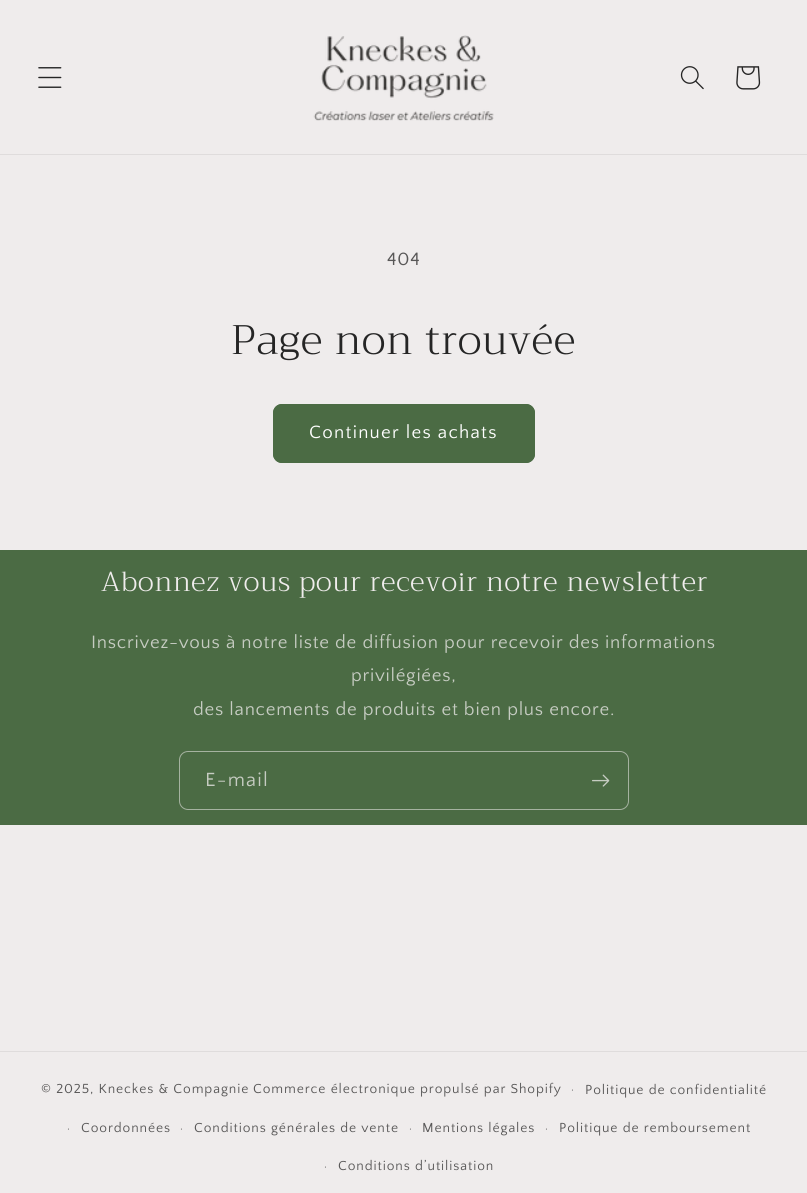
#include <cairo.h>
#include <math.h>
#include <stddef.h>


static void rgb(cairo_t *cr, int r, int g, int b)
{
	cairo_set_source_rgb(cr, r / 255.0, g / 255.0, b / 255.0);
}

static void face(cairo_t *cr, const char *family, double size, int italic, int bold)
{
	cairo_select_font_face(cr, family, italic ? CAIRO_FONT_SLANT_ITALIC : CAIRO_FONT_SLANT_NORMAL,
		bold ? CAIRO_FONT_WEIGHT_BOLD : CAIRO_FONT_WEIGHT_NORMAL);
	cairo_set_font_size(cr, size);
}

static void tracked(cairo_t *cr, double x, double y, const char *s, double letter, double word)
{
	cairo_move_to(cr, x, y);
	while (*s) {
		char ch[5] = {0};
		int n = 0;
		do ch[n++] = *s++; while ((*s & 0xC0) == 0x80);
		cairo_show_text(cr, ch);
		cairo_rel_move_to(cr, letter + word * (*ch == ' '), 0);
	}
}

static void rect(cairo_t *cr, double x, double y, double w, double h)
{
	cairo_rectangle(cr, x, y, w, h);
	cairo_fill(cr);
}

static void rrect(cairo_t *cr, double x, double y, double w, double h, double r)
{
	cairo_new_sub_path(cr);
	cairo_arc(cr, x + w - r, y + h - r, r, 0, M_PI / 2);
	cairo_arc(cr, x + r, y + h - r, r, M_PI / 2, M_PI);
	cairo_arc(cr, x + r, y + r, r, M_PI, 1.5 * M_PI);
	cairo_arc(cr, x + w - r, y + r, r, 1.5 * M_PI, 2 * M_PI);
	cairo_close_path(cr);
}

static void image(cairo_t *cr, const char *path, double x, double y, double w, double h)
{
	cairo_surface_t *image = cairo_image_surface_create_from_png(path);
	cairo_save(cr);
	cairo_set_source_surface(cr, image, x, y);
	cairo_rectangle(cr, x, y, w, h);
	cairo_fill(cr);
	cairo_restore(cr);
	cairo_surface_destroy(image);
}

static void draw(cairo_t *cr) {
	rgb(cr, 239, 236, 236);
	cairo_paint(cr);
	rgb(cr, 223, 220, 220);
	rect(cr, 0, 154, 807, 1);
	image(cr, "image0.png", 38, 67, 24, 21);
	image(cr, "image1.png", 313, 35, 181, 86);
	image(cr, "image2.png", 680, 66, 24, 24);
	image(cr, "image3.png", 736, 66, 25, 24);
	face(cr, "Quattrocento Sans", 18.75, 0, 0);
	rgb(cr, 88, 87, 87);
	tracked(cr, 387, 265, "404", 0.75, 0);
	face(cr, "Trirong Light", 41.25, 0, 0);
	rgb(cr, 37, 37, 37);
	tracked(cr, 231, 354, "Page non trouvée", 0.85, 0);
	rgb(cr, 75, 107, 68);
	rrect(cr, 273, 404, 262, 59, 9);
	cairo_fill(cr);
	rrect(cr, 273.5, 404.5, 261, 58, 8.5);
	cairo_set_line_width(cr, 1);
	cairo_stroke(cr);
	face(cr, "Quattrocento Sans", 18.75, 0, 0);
	rgb(cr, 255, 255, 255);
	tracked(cr, 309, 438, "Continuer les achats", 1.25, 0);
	rgb(cr, 75, 107, 68);
	rect(cr, 0, 550, 807, 275);
	face(cr, "Trirong Light", 27.5, 0, 0);
	rgb(cr, 239, 236, 236);
	tracked(cr, 101, 591, "Abonnez vous pour recevoir notre newsletter", 0.85, 0);
	face(cr, "Quattrocento Sans", 18.75, 0, 0);
	rgb(cr, 198, 204, 194);
	tracked(cr, 91, 648, "Inscrivez-vous à notre liste de diffusion pour recevoir des informations", 0.75, 0);
	tracked(cr, 351, 681, "privilégiées,", 0.75, 0);
	tracked(cr, 193, 715, "des lancements de produits et bien plus encore.", 0.75, 0);
	rrect(cr, 179.5, 751.5, 449, 58, 8.5);
	rgb(cr, 165, 178, 160);
	cairo_stroke(cr);
	face(cr, "Quattrocento Sans", 20, 0, 0);
	rgb(cr, 198, 204, 194);
	tracked(cr, 205, 786, "E-mail", 1.25, 0);
	image(cr, "image4.png", 592, 774, 18, 13);
	rgb(cr, 223, 220, 220);
	rect(cr, 0, 1051, 807, 1);
	face(cr, "Quattrocento Sans", 13.75, 0, 0);
	rgb(cr, 88, 87, 87);
	tracked(cr, 41, 1093, "© 2025, Kneckes & Compagnie", 0.9, 0);
	tracked(cr, 253, 1093, "Commerce électronique propulsé par Shopify", 0.9, 0);
	face(cr, "Quattrocento Sans", 12, 0, 0);
	tracked(cr, 571, 1093, "·", 0.9, 0);
	face(cr, "Quattrocento Sans", 13.75, 0, 0);
	tracked(cr, 585, 1094, "Politique de confidentialité", 0.9, 0);
	face(cr, "Quattrocento Sans", 12, 0, 0);
	tracked(cr, 67, 1132, "·", 0.9, 0);
	face(cr, "Quattrocento Sans", 13.75, 0, 0);
	tracked(cr, 81, 1132, "Coordonnées", 0.9, 0);
	face(cr, "Quattrocento Sans", 12, 0, 0);
	tracked(cr, 180, 1132, "·", 0.9, 0);
	face(cr, "Quattrocento Sans", 13.75, 0, 0);
	tracked(cr, 194, 1132, "Conditions générales de vente", 0.9, 0);
	face(cr, "Quattrocento Sans", 12, 0, 0);
	tracked(cr, 409, 1132, "·", 0.9, 0);
	face(cr, "Quattrocento Sans", 13.75, 0, 0);
	tracked(cr, 422, 1132, "Mentions légales", 0.9, 0);
	face(cr, "Quattrocento Sans", 12, 0, 0);
	tracked(cr, 545, 1132, "·", 0.9, 0);
	face(cr, "Quattrocento Sans", 13.75, 0, 0);
	tracked(cr, 559, 1132, "Politique de remboursement", 0.9, 0);
	face(cr, "Quattrocento Sans", 12, 0, 0);
	tracked(cr, 324, 1170, "·", 0.9, 0);
	face(cr, "Quattrocento Sans", 13.75, 0, 0);
	tracked(cr, 338, 1170, "Conditions d’utilisation", 0.9, 0);
}

int main(void) {
	cairo_surface_t *surface = cairo_image_surface_create(CAIRO_FORMAT_RGB24, 807, 1193);
	cairo_t *cr = cairo_create(surface);
	cairo_font_options_t *options = cairo_font_options_create();
	cairo_font_options_set_hint_metrics(options, CAIRO_HINT_METRICS_OFF);
	cairo_font_options_set_hint_style(options, CAIRO_HINT_STYLE_NONE);
	cairo_set_font_options(cr, options);
	cairo_set_miter_limit(cr, 4);
	draw(cr);
	cairo_surface_write_to_png(surface, "render.png");
	cairo_font_options_destroy(options);
	cairo_destroy(cr);
	cairo_surface_destroy(surface);
	return 0;
}
